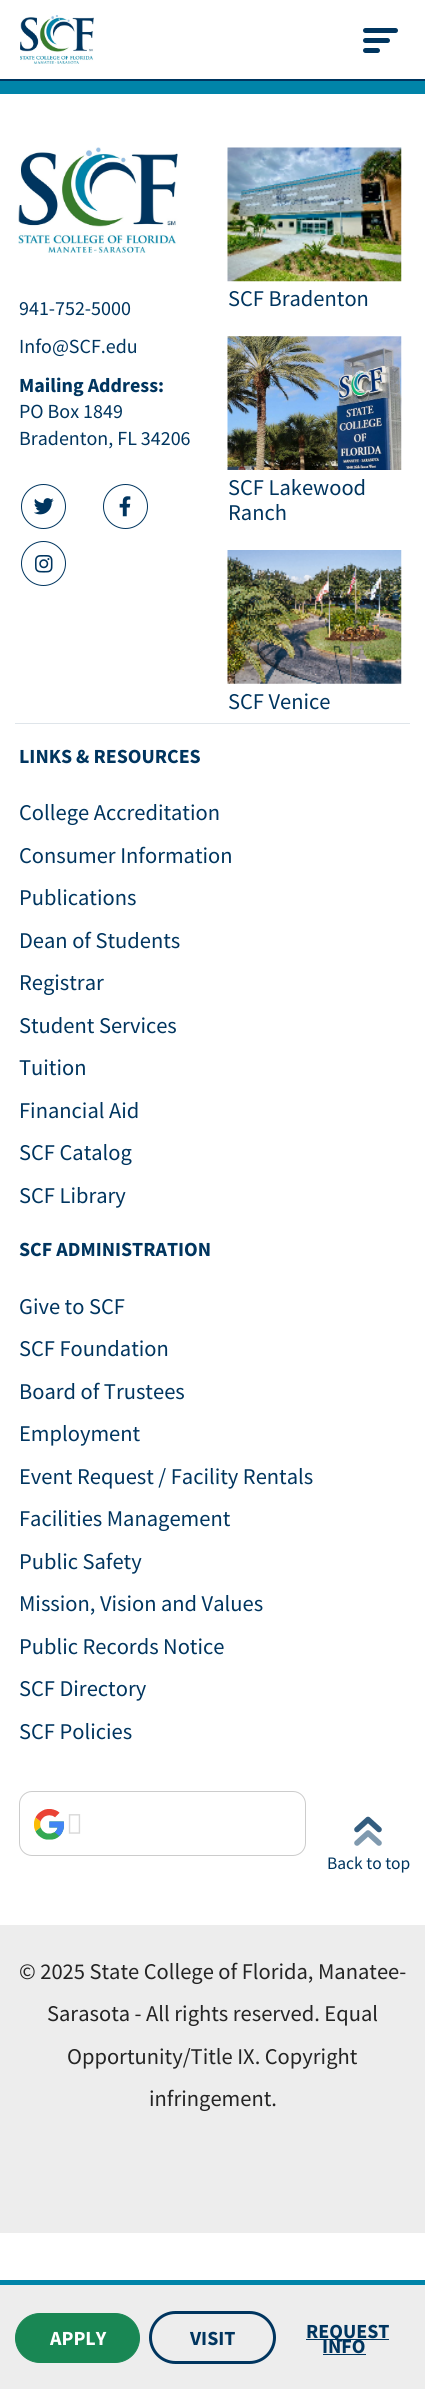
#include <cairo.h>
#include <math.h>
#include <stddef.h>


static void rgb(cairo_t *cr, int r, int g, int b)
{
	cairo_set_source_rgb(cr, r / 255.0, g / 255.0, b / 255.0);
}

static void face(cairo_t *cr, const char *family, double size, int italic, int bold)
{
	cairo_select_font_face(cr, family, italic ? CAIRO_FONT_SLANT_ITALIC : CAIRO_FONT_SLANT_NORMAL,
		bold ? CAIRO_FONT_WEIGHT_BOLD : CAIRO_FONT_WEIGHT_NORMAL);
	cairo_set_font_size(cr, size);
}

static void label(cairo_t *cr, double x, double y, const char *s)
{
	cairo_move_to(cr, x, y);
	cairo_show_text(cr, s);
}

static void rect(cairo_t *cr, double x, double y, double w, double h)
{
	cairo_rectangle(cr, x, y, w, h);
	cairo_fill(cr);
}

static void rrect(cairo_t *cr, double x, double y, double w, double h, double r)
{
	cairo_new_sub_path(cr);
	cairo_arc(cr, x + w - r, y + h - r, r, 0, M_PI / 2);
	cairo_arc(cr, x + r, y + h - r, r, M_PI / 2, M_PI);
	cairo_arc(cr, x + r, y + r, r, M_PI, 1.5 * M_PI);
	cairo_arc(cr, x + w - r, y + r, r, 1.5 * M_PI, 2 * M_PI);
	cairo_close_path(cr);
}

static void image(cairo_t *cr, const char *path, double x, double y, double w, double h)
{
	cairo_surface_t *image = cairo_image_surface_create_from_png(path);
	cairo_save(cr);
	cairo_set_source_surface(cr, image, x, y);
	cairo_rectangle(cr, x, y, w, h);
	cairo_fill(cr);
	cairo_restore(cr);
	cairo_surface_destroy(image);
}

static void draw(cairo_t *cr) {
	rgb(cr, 255, 255, 255);
	cairo_paint(cr);
	rgb(cr, 0, 53, 95);
	rect(cr, 0, 79, 425, 2);
	image(cr, "image0.png", 20, 15, 74, 49);
	rrect(cr, 363, 28, 35, 5, 2.5);
	cairo_fill(cr);
	rrect(cr, 363, 38, 27, 5, 2.5);
	cairo_fill(cr);
	rrect(cr, 363, 48, 17, 5, 2.5);
	cairo_fill(cr);
	rgb(cr, 237, 237, 237);
	rect(cr, 0, 1925, 425, 308);
	rgb(cr, 0, 132, 169);
	rect(cr, 0, 81, 425, 13);
	image(cr, "image1.png", 18, 147, 160, 106);
	face(cr, "Source Sans Pro", 20, 0, 0);
	rgb(cr, 0, 53, 95);
	label(cr, 19, 315, "941-752-5000");
	label(cr, 19, 353, "Info@SCF.edu");
	face(cr, "Source Sans Pro", 20, 0, 1);
	label(cr, 19, 392, "Mailing Address:");
	face(cr, "Source Sans Pro", 20, 0, 0);
	label(cr, 19, 418, "PO Box 1849");
	label(cr, 19, 445, "Bradenton, FL 34206");
	cairo_new_path(cr);
	cairo_arc(cr, 43.5, 506.5, 22, 0, 2 * M_PI);
	cairo_set_line_width(cr, 1);
	cairo_stroke(cr);
	image(cr, "image2.png", 34, 498, 20, 17);
	cairo_arc(cr, 125.5, 506.5, 22, 0, 2 * M_PI);
	cairo_stroke(cr);
	image(cr, "image3.png", 119, 496, 12, 21);
	cairo_arc(cr, 43.5, 563.5, 22, 0, 2 * M_PI);
	cairo_stroke(cr);
	image(cr, "image4.png", 35, 555, 18, 18);
	image(cr, "image5.png", 227, 147, 175, 135);
	face(cr, "Source Sans Pro", 22.5, 0, 0);
	label(cr, 228, 306, "SCF Bradenton");
	image(cr, "image6.png", 227, 336, 175, 134);
	label(cr, 228, 495, "SCF Lakewood");
	label(cr, 228, 520, "Ranch");
	image(cr, "image7.png", 227, 550, 175, 134);
	label(cr, 228, 709, "SCF Venice");
	rgb(cr, 223, 229, 234);
	rect(cr, 15, 723, 395, 1);
	face(cr, "Source Sans Pro", 20, 0, 1);
	rgb(cr, 0, 53, 95);
	label(cr, 19, 763, "LINKS & RESOURCES");
	face(cr, "Source Sans Pro", 22.5, 0, 0);
	label(cr, 19, 820, "College Accreditation");
	label(cr, 19, 863, "Consumer Information");
	label(cr, 19, 905, "Publications");
	label(cr, 19, 948, "Dean of Students");
	label(cr, 19, 990, "Registrar");
	label(cr, 19, 1033, "Student Services");
	label(cr, 19, 1075, "Tuition");
	label(cr, 19, 1118, "Financial Aid");
	label(cr, 19, 1160, "SCF Catalog");
	label(cr, 19, 1203, "SCF Library");
	face(cr, "Source Sans Pro", 20, 0, 1);
	label(cr, 19, 1256, "SCF ADMINISTRATION");
	face(cr, "Source Sans Pro", 22.5, 0, 0);
	label(cr, 19, 1314, "Give to SCF");
	label(cr, 19, 1356, "SCF Foundation");
	label(cr, 19, 1399, "Board of Trustees");
	label(cr, 19, 1441, "Employment");
	label(cr, 19, 1484, "Event Request / Facility Rentals");
	label(cr, 19, 1526, "Facilities Management");
	label(cr, 19, 1569, "Public Safety");
	label(cr, 19, 1611, "Mission, Vision and Values");
	label(cr, 19, 1654, "Public Records Notice");
	label(cr, 19, 1696, "SCF Directory");
	label(cr, 19, 1739, "SCF Policies");
	rrect(cr, 19.5, 1791.5, 286, 64, 12.5);
	rgb(cr, 204, 204, 204);
	cairo_stroke(cr);
	image(cr, "image8.png", 34, 1809, 31, 31);
	image(cr, "image9.png", 68, 1814, 13, 20);
	cairo_new_path(cr);
	cairo_move_to(cr, 357, 1829.5);
	cairo_line_to(cr, 368, 1819.5);
	cairo_line_to(cr, 379, 1829.5);
	rgb(cr, 51, 93, 127);
	cairo_set_line_width(cr, 5.6);
	cairo_set_line_cap(cr, CAIRO_LINE_CAP_ROUND);
	cairo_set_line_join(cr, CAIRO_LINE_JOIN_ROUND);
	cairo_stroke(cr);
	cairo_new_path(cr);
	cairo_move_to(cr, 357, 1843);
	cairo_line_to(cr, 368, 1833);
	cairo_line_to(cr, 379, 1843);
	rgb(cr, 128, 154, 175);
	cairo_stroke(cr);
	face(cr, "Source Sans Pro", 17.5, 0, 0);
	rgb(cr, 0, 53, 95);
	label(cr, 327, 1869, "Back to top");
	face(cr, "Source Sans Pro", 22.5, 0, 0);
	rgb(cr, 36, 36, 36);
	label(cr, 19, 1979, "© 2025 State College of Florida, Manatee-");
	label(cr, 47, 2021, "Sarasota - All rights reserved. Equal");
	label(cr, 67, 2064, "Opportunity/Title IX. Copyright");
	label(cr, 149, 2106, "infringement.");
	rgb(cr, 237, 237, 237);
	rect(cr, 0, 2285, 425, 104);
	rgb(cr, 0, 132, 169);
	rect(cr, 0, 2280, 425, 5);
	rgb(cr, 25, 135, 84);
	rrect(cr, 15.5, 2313.5, 124, 49, 24.5);
	cairo_fill_preserve(cr);
	cairo_set_line_width(cr, 1);
	cairo_set_line_cap(cr, CAIRO_LINE_CAP_BUTT);
	cairo_set_line_join(cr, CAIRO_LINE_JOIN_MITER);
	cairo_stroke(cr);
	face(cr, "Source Sans Pro", 20, 0, 1);
	rgb(cr, 255, 255, 255);
	label(cr, 50, 2345, "APPLY");
	rrect(cr, 150.5, 2312.5, 124, 50, 25);
	rgb(cr, 0, 53, 95);
	cairo_set_line_width(cr, 3);
	cairo_stroke(cr);
	label(cr, 190, 2345, "VISIT");
	rect(cr, 306, 2339, 83, 1);
	label(cr, 306, 2338, "REQUEST");
	label(cr, 322, 2353, "INFO");
	rect(cr, 323, 2354, 43, 1);
}

int main(void) {
	cairo_surface_t *surface = cairo_image_surface_create(CAIRO_FORMAT_RGB24, 425, 2389);
	cairo_t *cr = cairo_create(surface);
	cairo_font_options_t *options = cairo_font_options_create();
	cairo_font_options_set_hint_metrics(options, CAIRO_HINT_METRICS_OFF);
	cairo_font_options_set_hint_style(options, CAIRO_HINT_STYLE_NONE);
	cairo_set_font_options(cr, options);
	cairo_set_miter_limit(cr, 4);
	draw(cr);
	cairo_surface_write_to_png(surface, "render.png");
	cairo_font_options_destroy(options);
	cairo_destroy(cr);
	cairo_surface_destroy(surface);
	return 0;
}
